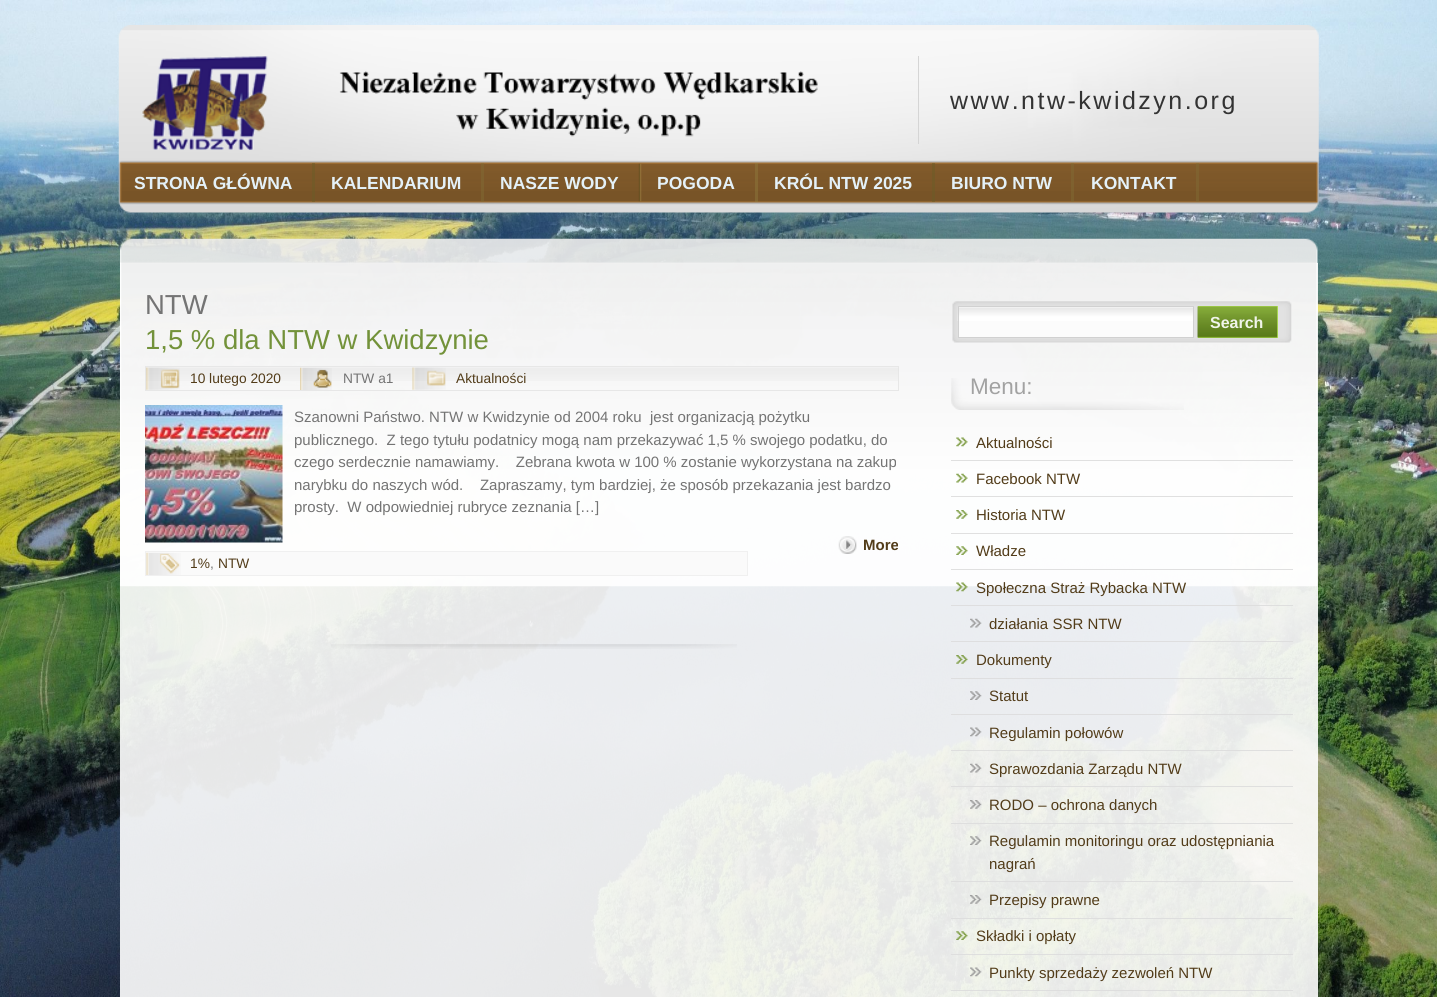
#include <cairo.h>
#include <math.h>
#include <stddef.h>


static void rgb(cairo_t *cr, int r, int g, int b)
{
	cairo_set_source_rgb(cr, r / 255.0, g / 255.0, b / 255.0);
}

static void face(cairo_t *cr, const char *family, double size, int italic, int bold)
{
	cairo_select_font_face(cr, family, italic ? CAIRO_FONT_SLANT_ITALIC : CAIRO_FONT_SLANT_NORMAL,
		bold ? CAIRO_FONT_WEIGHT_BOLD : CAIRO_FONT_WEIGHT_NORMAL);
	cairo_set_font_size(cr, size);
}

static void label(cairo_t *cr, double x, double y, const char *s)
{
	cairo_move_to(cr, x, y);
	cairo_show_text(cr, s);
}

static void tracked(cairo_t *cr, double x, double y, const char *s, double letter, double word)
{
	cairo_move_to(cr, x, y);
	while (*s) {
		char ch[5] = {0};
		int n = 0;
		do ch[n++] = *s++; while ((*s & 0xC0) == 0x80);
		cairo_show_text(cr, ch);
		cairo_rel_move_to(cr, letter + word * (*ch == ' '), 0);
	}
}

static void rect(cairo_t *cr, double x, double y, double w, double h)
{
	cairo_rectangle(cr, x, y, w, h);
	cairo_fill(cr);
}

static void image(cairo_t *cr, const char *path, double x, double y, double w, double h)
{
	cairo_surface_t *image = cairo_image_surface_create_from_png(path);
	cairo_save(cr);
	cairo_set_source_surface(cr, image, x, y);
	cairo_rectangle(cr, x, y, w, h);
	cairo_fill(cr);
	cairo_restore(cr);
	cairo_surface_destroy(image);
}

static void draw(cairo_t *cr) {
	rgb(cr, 255, 255, 255);
	cairo_paint(cr);
	image(cr, "image0.png", 0, 0, 1437, 997);
	image(cr, "image1.png", 118, 25, 1201, 188);
	rgb(cr, 213, 213, 213);
	rect(cr, 918, 56, 1, 88);
	image(cr, "image2.png", 142, 56, 676, 94);
	face(cr, "Liberation Sans", 25, 0, 0);
	rgb(cr, 51, 51, 51);
	tracked(cr, 950, 109, "www.ntw-kwidzyn.org", 2.5, 0);
	image(cr, "image3.png", 118, 160, 1202, 45);
	cairo_set_source_rgba(cr, 0.427, 0.361, 0.157, 0.52);
	rect(cr, 312, 163, 3, 39);
	face(cr, "Liberation Sans", 17.5, 0, 1);
	rgb(cr, 228, 241, 248);
	label(cr, 134, 189, "STRONA GŁÓWNA");
	cairo_set_source_rgba(cr, 0.51, 0.431, 0.212, 0.45);
	rect(cr, 481, 163, 3, 39);
	rgb(cr, 228, 241, 248);
	label(cr, 331, 189, "KALENDARIUM");
	image(cr, "image4.png", 638, 163, 4, 39);
	label(cr, 500, 189, "NASZE WODY");
	cairo_set_source_rgba(cr, 0.58, 0.502, 0.251, 0.39);
	rect(cr, 755, 163, 3, 39);
	rgb(cr, 228, 241, 248);
	label(cr, 657, 189, "POGODA");
	cairo_set_source_rgba(cr, 0.427, 0.361, 0.157, 0.52);
	rect(cr, 932, 163, 3, 39);
	rgb(cr, 228, 241, 248);
	label(cr, 774, 189, "KRÓL NTW 2025");
	cairo_set_source_rgba(cr, 0.51, 0.431, 0.212, 0.45);
	rect(cr, 1071, 163, 3, 39);
	rgb(cr, 228, 241, 248);
	label(cr, 951, 189, "BIURO NTW");
	cairo_set_source_rgba(cr, 0.51, 0.431, 0.212, 0.45);
	rect(cr, 1196, 163, 3, 39);
	rgb(cr, 228, 241, 248);
	label(cr, 1091, 189, "KONTAKT");
	image(cr, "image5.png", 120, 238, 1198, 26);
	cairo_set_source_rgba(cr, 1, 1, 1, 0.9);
	rect(cr, 120, 263, 1198, 734);
	image(cr, "image6.png", 120, 262, 1198, 325);
	face(cr, "Liberation Sans", 27.5, 0, 0);
	rgb(cr, 116, 116, 116);
	label(cr, 145, 314, "NTW");
	rgb(cr, 115, 146, 58);
	label(cr, 145, 349, "1,5 % dla NTW w Kwidzynie");
	image(cr, "image7.png", 145, 367, 754, 14);
	cairo_rectangle(cr, 145.5, 366.5, 753, 24);
	cairo_set_source_rgba(cr, 0.902, 0.902, 0.902, 0.9);
	cairo_set_line_width(cr, 1);
	cairo_stroke(cr);
	image(cr, "image8.png", 146, 367, 34, 23);
	face(cr, "Liberation Sans", 13.75, 0, 0);
	rgb(cr, 82, 60, 25);
	label(cr, 190, 383, "10 lutego 2020");
	image(cr, "image9.png", 300, 367, 32, 23);
	rgb(cr, 116, 116, 116);
	label(cr, 343, 383, "NTW a1");
	image(cr, "image10.png", 412, 367, 34, 23);
	rgb(cr, 82, 60, 25);
	label(cr, 456, 383, "Aktualności");
	image(cr, "image11.png", 145, 405, 138, 138);
	face(cr, "Liberation Sans", 15, 0, 0);
	rgb(cr, 116, 116, 116);
	label(cr, 294, 422, "Szanowni Państwo. NTW w Kwidzynie od 2004 roku  jest organizacją pożytku");
	label(cr, 294, 445, "publicznego.  Z tego tytułu podatnicy mogą nam przekazywać 1,5 % swojego podatku, do");
	label(cr, 294, 467, "czego serdecznie namawiamy.    Zebrana kwota w 100 % zostanie wykorzystana na zakup");
	label(cr, 294, 490, "narybku do naszych wód.    Zapraszamy, tym bardziej, że sposób przekazania jest bardzo");
	label(cr, 294, 512, "prosty.  W odpowiedniej rubryce zeznania […]");
	image(cr, "image12.png", 838, 536, 19, 18);
	face(cr, "Liberation Sans", 15, 0, 1);
	rgb(cr, 82, 60, 25);
	label(cr, 863, 550, "More");
	rgb(cr, 250, 250, 250);
	cairo_rectangle(cr, 145.5, 551.5, 602, 24);
	cairo_fill_preserve(cr);
	rgb(cr, 240, 240, 240);
	cairo_stroke(cr);
	image(cr, "image13.png", 146, 552, 35, 23);
	face(cr, "Liberation Sans", 13.75, 0, 0);
	rgb(cr, 82, 60, 25);
	label(cr, 190, 568, "1%");
	rgb(cr, 116, 116, 116);
	label(cr, 210, 568, ",");
	rgb(cr, 82, 60, 25);
	label(cr, 218, 568, "NTW");
	image(cr, "image14.png", 331, 644, 406, 5);
	image(cr, "image15.png", 952, 301, 340, 42);
	cairo_set_source_rgba(cr, 1, 1, 1, 0.9);
	rect(cr, 958, 306, 236, 32);
	image(cr, "image16.png", 957, 307, 237, 14);
	cairo_rectangle(cr, 958.5, 306.5, 235, 31);
	cairo_set_source_rgba(cr, 0.8, 0.8, 0.8, 0.9);
	cairo_stroke(cr);
	rgb(cr, 182, 229, 91);
	rect(cr, 1198, 306, 80, 32);
	image(cr, "image17.png", 1197, 306, 81, 32);
	face(cr, "Liberation Sans", 16, 0, 1);
	rgb(cr, 240, 244, 234);
	label(cr, 1210, 328, "Search");
	image(cr, "image18.png", 951, 378, 233, 32);
	face(cr, "Liberation Sans", 22.5, 0, 0);
	rgb(cr, 162, 162, 162);
	label(cr, 970, 394, "Menu:");
	image(cr, "image19.png", 956, 437, 12, 10);
	rgb(cr, 224, 224, 224);
	rect(cr, 951, 460, 342, 1);
	face(cr, "Liberation Sans", 15, 0, 0);
	rgb(cr, 82, 60, 25);
	label(cr, 976, 448, "Aktualności");
	image(cr, "image20.png", 956, 473, 12, 10);
	rgb(cr, 224, 224, 224);
	rect(cr, 951, 496, 342, 1);
	rgb(cr, 82, 60, 25);
	label(cr, 976, 484, "Facebook NTW");
	image(cr, "image21.png", 956, 510, 12, 9);
	rgb(cr, 224, 224, 224);
	rect(cr, 951, 533, 342, 1);
	rgb(cr, 82, 60, 25);
	label(cr, 976, 520, "Historia NTW");
	image(cr, "image22.png", 956, 546, 12, 9);
	rgb(cr, 224, 224, 224);
	rect(cr, 951, 569, 342, 1);
	rgb(cr, 82, 60, 25);
	label(cr, 976, 556, "Władze");
	image(cr, "image23.png", 956, 582, 12, 10);
	cairo_set_source_rgba(cr, 0.867, 0.867, 0.867, 0.9);
	rect(cr, 951, 605, 342, 1);
	rgb(cr, 82, 60, 25);
	label(cr, 976, 593, "Społeczna Straż Rybacka NTW");
	image(cr, "image24.png", 970, 618, 12, 10);
	cairo_set_source_rgba(cr, 0.867, 0.867, 0.867, 0.9);
	rect(cr, 951, 641, 342, 1);
	rgb(cr, 82, 60, 25);
	label(cr, 989, 629, "działania SSR NTW");
	image(cr, "image25.png", 956, 655, 12, 9);
	cairo_set_source_rgba(cr, 0.867, 0.867, 0.867, 0.9);
	rect(cr, 951, 678, 342, 1);
	rgb(cr, 82, 60, 25);
	label(cr, 976, 665, "Dokumenty");
	image(cr, "image26.png", 970, 691, 12, 9);
	cairo_set_source_rgba(cr, 0.867, 0.867, 0.867, 0.9);
	rect(cr, 951, 714, 342, 1);
	rgb(cr, 82, 60, 25);
	label(cr, 989, 701, "Statut");
	image(cr, "image27.png", 970, 727, 12, 10);
	cairo_set_source_rgba(cr, 0.867, 0.867, 0.867, 0.9);
	rect(cr, 951, 750, 342, 1);
	rgb(cr, 82, 60, 25);
	label(cr, 989, 738, "Regulamin połowów");
	image(cr, "image28.png", 970, 763, 12, 10);
	cairo_set_source_rgba(cr, 0.867, 0.867, 0.867, 0.9);
	rect(cr, 951, 786, 342, 1);
	rgb(cr, 82, 60, 25);
	label(cr, 989, 774, "Sprawozdania Zarządu NTW");
	image(cr, "image29.png", 970, 800, 12, 9);
	cairo_set_source_rgba(cr, 0.867, 0.867, 0.867, 0.9);
	rect(cr, 951, 823, 342, 1);
	rgb(cr, 82, 60, 25);
	label(cr, 989, 810, "RODO – ochrona danych");
	image(cr, "image30.png", 970, 836, 12, 9);
	cairo_set_source_rgba(cr, 0.867, 0.867, 0.867, 0.9);
	rect(cr, 951, 881, 342, 1);
	rgb(cr, 82, 60, 25);
	label(cr, 989, 846, "Regulamin monitoringu oraz udostępniania");
	label(cr, 989, 869, "nagrań");
	image(cr, "image31.png", 970, 895, 12, 9);
	cairo_set_source_rgba(cr, 0.867, 0.867, 0.867, 0.9);
	rect(cr, 951, 918, 342, 1);
	rgb(cr, 82, 60, 25);
	label(cr, 989, 905, "Przepisy prawne");
	image(cr, "image32.png", 956, 931, 12, 9);
	cairo_set_source_rgba(cr, 0.867, 0.867, 0.867, 0.9);
	rect(cr, 951, 954, 342, 1);
	rgb(cr, 82, 60, 25);
	label(cr, 976, 941, "Składki i opłaty");
	image(cr, "image33.png", 970, 967, 12, 10);
	cairo_set_source_rgba(cr, 0.867, 0.867, 0.867, 0.9);
	rect(cr, 951, 990, 342, 1);
	rgb(cr, 82, 60, 25);
	label(cr, 989, 978, "Punkty sprzedaży zezwoleń NTW");
}

int main(void) {
	cairo_surface_t *surface = cairo_image_surface_create(CAIRO_FORMAT_RGB24, 1437, 997);
	cairo_t *cr = cairo_create(surface);
	cairo_font_options_t *options = cairo_font_options_create();
	cairo_font_options_set_hint_metrics(options, CAIRO_HINT_METRICS_OFF);
	cairo_font_options_set_hint_style(options, CAIRO_HINT_STYLE_NONE);
	cairo_set_font_options(cr, options);
	cairo_set_miter_limit(cr, 4);
	draw(cr);
	cairo_surface_write_to_png(surface, "render.png");
	cairo_font_options_destroy(options);
	cairo_destroy(cr);
	cairo_surface_destroy(surface);
	return 0;
}
